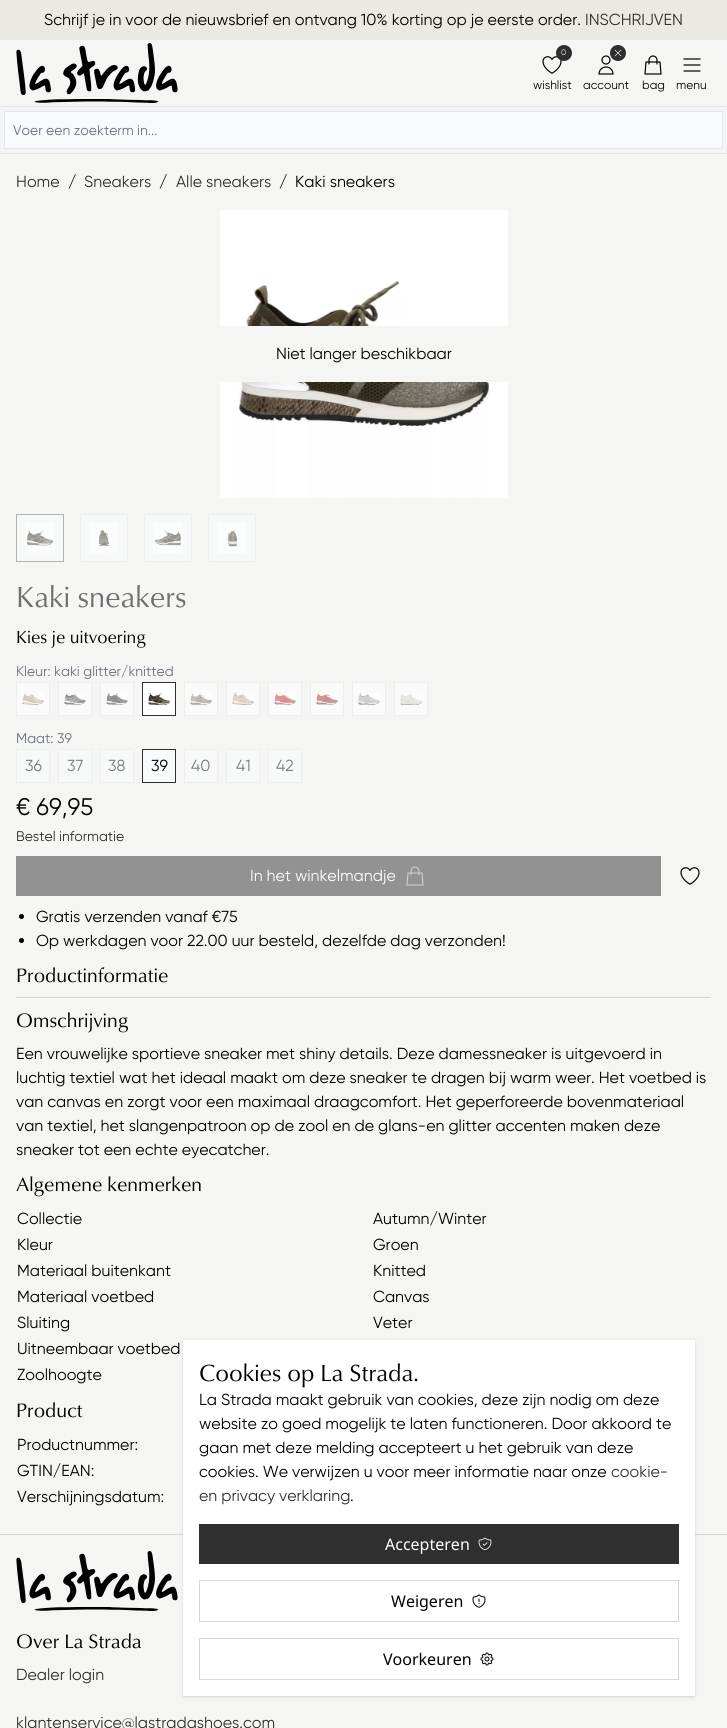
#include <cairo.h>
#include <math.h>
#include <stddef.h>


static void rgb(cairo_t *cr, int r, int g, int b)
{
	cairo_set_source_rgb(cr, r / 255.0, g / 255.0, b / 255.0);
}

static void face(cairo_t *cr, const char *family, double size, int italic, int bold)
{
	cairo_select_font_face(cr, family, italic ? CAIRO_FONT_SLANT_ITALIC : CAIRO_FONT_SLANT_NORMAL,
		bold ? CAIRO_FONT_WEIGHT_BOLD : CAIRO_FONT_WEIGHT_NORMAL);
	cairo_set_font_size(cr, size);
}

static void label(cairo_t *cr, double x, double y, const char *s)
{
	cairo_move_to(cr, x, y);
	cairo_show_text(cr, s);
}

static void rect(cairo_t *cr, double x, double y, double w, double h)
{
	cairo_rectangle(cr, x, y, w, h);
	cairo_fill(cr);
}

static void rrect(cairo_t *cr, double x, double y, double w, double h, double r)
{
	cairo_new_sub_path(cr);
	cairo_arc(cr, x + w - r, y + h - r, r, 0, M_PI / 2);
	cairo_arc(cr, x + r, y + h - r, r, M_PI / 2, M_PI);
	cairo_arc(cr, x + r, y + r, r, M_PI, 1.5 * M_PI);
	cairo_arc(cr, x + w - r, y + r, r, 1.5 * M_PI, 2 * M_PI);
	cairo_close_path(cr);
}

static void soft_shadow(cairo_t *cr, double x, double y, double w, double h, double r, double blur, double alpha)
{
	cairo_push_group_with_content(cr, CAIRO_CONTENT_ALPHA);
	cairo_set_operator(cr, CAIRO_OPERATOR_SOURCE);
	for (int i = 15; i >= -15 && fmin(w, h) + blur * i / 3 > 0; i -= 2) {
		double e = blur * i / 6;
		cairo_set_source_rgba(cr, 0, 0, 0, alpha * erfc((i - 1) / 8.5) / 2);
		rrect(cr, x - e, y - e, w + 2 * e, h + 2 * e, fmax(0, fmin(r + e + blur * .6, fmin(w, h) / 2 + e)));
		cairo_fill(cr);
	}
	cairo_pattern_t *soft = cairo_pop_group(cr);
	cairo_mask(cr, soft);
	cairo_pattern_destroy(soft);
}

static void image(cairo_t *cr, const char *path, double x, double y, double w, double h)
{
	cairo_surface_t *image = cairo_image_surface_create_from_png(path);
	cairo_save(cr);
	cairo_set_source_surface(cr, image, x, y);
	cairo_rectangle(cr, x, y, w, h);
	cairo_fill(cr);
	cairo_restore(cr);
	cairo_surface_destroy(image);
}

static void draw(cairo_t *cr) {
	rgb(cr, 235, 233, 228);
	cairo_paint(cr);
	face(cr, "Gilroy", 16, 0, 0);
	rgb(cr, 0, 0, 0);
	label(cr, 44, 25, "Schrijf je in voor de nieuwsbrief en ontvang 10% korting op je eerste order.");
	rgb(cr, 47, 47, 47);
	label(cr, 585, 25, "INSCHRIJVEN");
	rgb(cr, 245, 245, 244);
	rect(cr, 0, 40, 727, 66);
	image(cr, "image0.png", 16, 43, 162, 60);
	image(cr, "image1.png", 542, 56, 20, 18);
	rgb(cr, 47, 47, 47);
	cairo_arc(cr, 564, 53, 8, 0, 2 * M_PI);
	cairo_fill(cr);
	face(cr, "Gilroy", 8, 0, 0);
	rgb(cr, 255, 255, 255);
	label(cr, 561, 55, "0");
	face(cr, "Gilroy", 12, 0, 0);
	rgb(cr, 0, 0, 0);
	label(cr, 533, 89, "wishlist");
	image(cr, "image2.png", 598, 55, 16, 20);
	rgb(cr, 47, 47, 47);
	cairo_arc(cr, 618, 53, 8, 0, 2 * M_PI);
	cairo_fill(cr);
	cairo_new_path(cr);
	cairo_move_to(cr, 615, 56);
	cairo_line_to(cr, 621, 50);
	cairo_move_to(cr, 615, 50);
	cairo_line_to(cr, 621, 56);
	rgb(cr, 255, 255, 255);
	cairo_set_line_width(cr, 0.6);
	cairo_set_line_cap(cr, CAIRO_LINE_CAP_ROUND);
	cairo_set_line_join(cr, CAIRO_LINE_JOIN_ROUND);
	cairo_stroke(cr);
	rgb(cr, 0, 0, 0);
	label(cr, 583, 89, "account");
	image(cr, "image3.png", 644, 55, 18, 20);
	label(cr, 642, 89, "bag");
	cairo_new_path(cr);
	cairo_move_to(cr, 684, 59);
	cairo_line_to(cr, 700, 59);
	cairo_move_to(cr, 684, 65);
	cairo_line_to(cr, 700, 65);
	cairo_move_to(cr, 684, 71);
	cairo_line_to(cr, 700, 71);
	cairo_set_line_width(cr, 1.2);
	cairo_stroke(cr);
	label(cr, 676, 89, "menu");
	rgb(cr, 243, 244, 246);
	rect(cr, 0, 107, 727, 46);
	rgb(cr, 229, 231, 235);
	rect(cr, 0, 106, 727, 1);
	rect(cr, 0, 153, 727, 1);
	rgb(cr, 249, 250, 251);
	cairo_rectangle(cr, 4.5, 111.5, 718, 37);
	cairo_fill_preserve(cr);
	rgb(cr, 229, 231, 235);
	cairo_set_line_width(cr, 1);
	cairo_set_line_cap(cr, CAIRO_LINE_CAP_BUTT);
	cairo_set_line_join(cr, CAIRO_LINE_JOIN_MITER);
	cairo_stroke(cr);
	face(cr, "Gilroy", 14, 0, 0);
	rgb(cr, 107, 114, 128);
	label(cr, 13, 135, "Voer een zoekterm in...");
	rgb(cr, 245, 245, 244);
	rect(cr, 0, 154, 727, 1380);
	face(cr, "Gilroy", 16, 0, 0);
	rgb(cr, 47, 47, 47);
	label(cr, 16, 187, "Home");
	rgb(cr, 0, 0, 0);
	label(cr, 68, 187, "/");
	rgb(cr, 47, 47, 47);
	label(cr, 84, 187, "Sneakers");
	rgb(cr, 0, 0, 0);
	label(cr, 159, 187, "/");
	rgb(cr, 47, 47, 47);
	label(cr, 176, 187, "Alle sneakers");
	rgb(cr, 0, 0, 0);
	label(cr, 279, 187, "/");
	label(cr, 295, 187, "Kaki sneakers");
	image(cr, "image4.png", 220, 210, 288, 288);
	rgb(cr, 245, 245, 244);
	rect(cr, 220, 326, 288, 56);
	rgb(cr, 0, 0, 0);
	label(cr, 276, 359, "Niet langer beschikbaar");
	rgb(cr, 247, 248, 248);
	cairo_rectangle(cr, 16.5, 514.5, 47, 47);
	cairo_fill_preserve(cr);
	rgb(cr, 179, 179, 178);
	cairo_stroke(cr);
	image(cr, "image5.png", 25, 523, 30, 30);
	rgb(cr, 247, 248, 248);
	cairo_rectangle(cr, 80.5, 514.5, 47, 47);
	cairo_fill_preserve(cr);
	rgb(cr, 237, 238, 240);
	cairo_stroke(cr);
	image(cr, "image6.png", 89, 523, 30, 30);
	rgb(cr, 247, 248, 248);
	cairo_rectangle(cr, 144.5, 514.5, 47, 47);
	cairo_fill_preserve(cr);
	rgb(cr, 237, 238, 240);
	cairo_stroke(cr);
	image(cr, "image7.png", 153, 523, 30, 30);
	rgb(cr, 247, 248, 248);
	cairo_rectangle(cr, 208.5, 514.5, 47, 47);
	cairo_fill_preserve(cr);
	rgb(cr, 237, 238, 240);
	cairo_stroke(cr);
	image(cr, "image8.png", 217, 523, 30, 30);
	face(cr, "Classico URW", 30, 0, 0);
	rgb(cr, 112, 112, 112);
	label(cr, 16, 607, "Kaki sneakers");
	face(cr, "Classico URW", 18, 0, 0);
	rgb(cr, 0, 0, 0);
	label(cr, 16, 643, "Kies je uitvoering");
	face(cr, "Gilroy", 14, 0, 0);
	rgb(cr, 107, 114, 128);
	label(cr, 16, 676, "Kleur: kaki glitter/knitted");
	rgb(cr, 250, 250, 250);
	cairo_rectangle(cr, 16.5, 682.5, 33, 33);
	cairo_fill_preserve(cr);
	rgb(cr, 237, 238, 240);
	cairo_stroke(cr);
	image(cr, "image9.png", 22, 693, 22, 12);
	rgb(cr, 250, 250, 250);
	cairo_rectangle(cr, 58.5, 682.5, 33, 33);
	cairo_fill_preserve(cr);
	rgb(cr, 237, 238, 240);
	cairo_stroke(cr);
	image(cr, "image10.png", 64, 693, 22, 12);
	rgb(cr, 250, 250, 250);
	cairo_rectangle(cr, 100.5, 682.5, 33, 33);
	cairo_fill_preserve(cr);
	rgb(cr, 237, 238, 240);
	cairo_stroke(cr);
	image(cr, "image11.png", 106, 693, 22, 12);
	rgb(cr, 255, 255, 255);
	cairo_rectangle(cr, 142.5, 682.5, 33, 33);
	cairo_fill_preserve(cr);
	rgb(cr, 47, 47, 47);
	cairo_stroke(cr);
	image(cr, "image12.png", 148, 693, 22, 13);
	rgb(cr, 250, 250, 250);
	cairo_rectangle(cr, 184.5, 682.5, 33, 33);
	cairo_fill_preserve(cr);
	rgb(cr, 237, 238, 240);
	cairo_stroke(cr);
	image(cr, "image13.png", 190, 693, 22, 12);
	rgb(cr, 250, 250, 250);
	cairo_rectangle(cr, 226.5, 682.5, 33, 33);
	cairo_fill_preserve(cr);
	rgb(cr, 237, 238, 240);
	cairo_stroke(cr);
	image(cr, "image14.png", 232, 693, 22, 12);
	rgb(cr, 250, 250, 250);
	cairo_rectangle(cr, 268.5, 682.5, 33, 33);
	cairo_fill_preserve(cr);
	rgb(cr, 237, 238, 240);
	cairo_stroke(cr);
	image(cr, "image15.png", 274, 693, 22, 12);
	rgb(cr, 250, 250, 250);
	cairo_rectangle(cr, 310.5, 682.5, 33, 33);
	cairo_fill_preserve(cr);
	rgb(cr, 237, 238, 240);
	cairo_stroke(cr);
	image(cr, "image16.png", 316, 693, 22, 12);
	rgb(cr, 250, 250, 250);
	cairo_rectangle(cr, 352.5, 682.5, 33, 33);
	cairo_fill_preserve(cr);
	rgb(cr, 237, 238, 240);
	cairo_stroke(cr);
	image(cr, "image17.png", 358, 693, 22, 12);
	rgb(cr, 250, 250, 250);
	cairo_rectangle(cr, 394.5, 682.5, 33, 33);
	cairo_fill_preserve(cr);
	rgb(cr, 237, 238, 240);
	cairo_stroke(cr);
	image(cr, "image18.png", 400, 693, 22, 12);
	rgb(cr, 107, 114, 128);
	label(cr, 16, 743, "Maat: 39");
	rgb(cr, 247, 248, 248);
	cairo_rectangle(cr, 16.5, 749.5, 33, 33);
	cairo_fill_preserve(cr);
	rgb(cr, 237, 238, 240);
	cairo_stroke(cr);
	face(cr, "Gilroy", 16, 0, 0);
	rgb(cr, 123, 123, 122);
	label(cr, 25, 771, "36");
	rgb(cr, 247, 248, 248);
	cairo_rectangle(cr, 58.5, 749.5, 33, 33);
	cairo_fill_preserve(cr);
	rgb(cr, 237, 238, 240);
	cairo_stroke(cr);
	rgb(cr, 123, 123, 122);
	label(cr, 67, 771, "37");
	rgb(cr, 247, 248, 248);
	cairo_rectangle(cr, 100.5, 749.5, 33, 33);
	cairo_fill_preserve(cr);
	rgb(cr, 237, 238, 240);
	cairo_stroke(cr);
	rgb(cr, 123, 123, 122);
	label(cr, 108, 771, "38");
	rgb(cr, 249, 250, 251);
	cairo_rectangle(cr, 142.5, 749.5, 33, 33);
	cairo_fill_preserve(cr);
	rgb(cr, 47, 47, 47);
	cairo_stroke(cr);
	rgb(cr, 0, 0, 0);
	label(cr, 151, 771, "39");
	rgb(cr, 247, 248, 248);
	cairo_rectangle(cr, 184.5, 749.5, 33, 33);
	cairo_fill_preserve(cr);
	rgb(cr, 237, 238, 240);
	cairo_stroke(cr);
	rgb(cr, 123, 123, 122);
	label(cr, 191, 771, "40");
	rgb(cr, 247, 248, 248);
	cairo_rectangle(cr, 226.5, 749.5, 33, 33);
	cairo_fill_preserve(cr);
	rgb(cr, 237, 238, 240);
	cairo_stroke(cr);
	rgb(cr, 123, 123, 122);
	label(cr, 236, 771, "41");
	rgb(cr, 247, 248, 248);
	cairo_rectangle(cr, 268.5, 749.5, 33, 33);
	cairo_fill_preserve(cr);
	rgb(cr, 237, 238, 240);
	cairo_stroke(cr);
	rgb(cr, 123, 123, 122);
	label(cr, 276, 771, "42");
	face(cr, "Gilroy", 24, 0, 0);
	rgb(cr, 0, 0, 0);
	label(cr, 16, 815, "€ 69,95");
	face(cr, "Gilroy", 14, 0, 0);
	rgb(cr, 47, 47, 47);
	label(cr, 16, 841, "Bestel informatie");
	rgb(cr, 146, 146, 146);
	rect(cr, 16, 856, 645, 40);
	face(cr, "Gilroy", 16, 0, 0);
	rgb(cr, 255, 255, 255);
	label(cr, 250, 881, "In het winkelmandje");
	image(cr, "image19.png", 406, 866, 18, 20);
	image(cr, "image1.png", 680, 867, 20, 18);
	rgb(cr, 0, 0, 0);
	cairo_arc(cr, 21.5, 916.5, 2.5, 0, 2 * M_PI);
	cairo_fill(cr);
	label(cr, 36, 922, "Gratis verzenden vanaf €75");
	cairo_new_path(cr);
	cairo_arc(cr, 21.5, 940.5, 2.5, 0, 2 * M_PI);
	cairo_fill(cr);
	label(cr, 36, 946, "Op werkdagen voor 22.00 uur besteld, dezelfde dag verzonden!");
	face(cr, "Classico URW", 20, 0, 0);
	label(cr, 16, 982, "Productinformatie");
	rgb(cr, 214, 214, 213);
	rect(cr, 16, 997, 695, 1);
	rgb(cr, 0, 0, 0);
	label(cr, 16, 1027, "Omschrijving");
	face(cr, "Gilroy", 16, 0, 0);
	label(cr, 16, 1059, "Een vrouwelijke sportieve sneaker met shiny details. Deze damessneaker is uitgevoerd in");
	label(cr, 16, 1083, "luchtig textiel wat het ideaal maakt om deze sneaker te dragen bij warm weer. Het voetbed is");
	label(cr, 16, 1107, "van canvas en zorgt voor een maximaal draagcomfort. Het geperforeerde bovenmateriaal");
	label(cr, 16, 1131, "van textiel, het slangenpatroon op de zool en de glans-en glitter accenten maken deze");
	label(cr, 16, 1155, "sneaker tot een echte eyecatcher.");
	face(cr, "Classico URW", 20, 0, 0);
	label(cr, 16, 1191, "Algemene kenmerken");
	face(cr, "Gilroy", 16, 0, 0);
	label(cr, 17, 1224, "Collectie");
	label(cr, 373, 1224, "Autumn/Winter");
	label(cr, 17, 1250, "Kleur");
	label(cr, 373, 1250, "Groen");
	label(cr, 17, 1276, "Materiaal buitenkant");
	label(cr, 373, 1276, "Knitted");
	label(cr, 17, 1302, "Materiaal voetbed");
	label(cr, 373, 1302, "Canvas");
	label(cr, 17, 1328, "Sluiting");
	label(cr, 373, 1328, "Veter");
	label(cr, 17, 1354, "Uitneembaar voetbed");
	label(cr, 17, 1380, "Zoolhoogte");
	face(cr, "Classico URW", 20, 0, 0);
	label(cr, 16, 1417, "Product");
	face(cr, "Gilroy", 16, 0, 0);
	label(cr, 17, 1450, "Productnummer:");
	label(cr, 17, 1476, "GTIN/EAN:");
	label(cr, 17, 1502, "Verschijningsdatum:");
	rgb(cr, 245, 245, 244);
	rect(cr, 0, 1535, 727, 193);
	rgb(cr, 214, 214, 213);
	rect(cr, 0, 1534, 727, 1);
	rgb(cr, 0, 0, 0);
	soft_shadow(cr, 184, 1342, 510, 354, 0, 1, 0.1);
	image(cr, "image0.png", 16, 1551, 162, 60);
	soft_shadow(cr, 183, 1341, 512, 356, 0, 1.5, 0.1);
	rgb(cr, 255, 255, 255);
	rect(cr, 183, 1340, 512, 356);
	face(cr, "Classico URW", 24, 0, 0);
	rgb(cr, 0, 0, 0);
	label(cr, 199, 1381, "Cookies op La Strada.");
	face(cr, "Gilroy", 16, 0, 0);
	label(cr, 199, 1405, "La Strada maakt gebruik van cookies, deze zijn nodig om deze");
	label(cr, 199, 1429, "website zo goed mogelijk te laten functioneren. Door akkoord te");
	label(cr, 199, 1453, "gaan met deze melding accepteert u het gebruik van deze");
	label(cr, 199, 1477, "cookies. We verwijzen u voor meer informatie naar onze");
	rgb(cr, 47, 47, 47);
	label(cr, 611, 1477, "cookie-");
	label(cr, 199, 1501, "en privacy verklaring");
	rgb(cr, 0, 0, 0);
	label(cr, 350, 1501, ".");
	rgb(cr, 47, 47, 47);
	rect(cr, 199, 1524, 480, 40);
	face(cr, "Noto Sans", 16, 0, 0);
	rgb(cr, 255, 255, 255);
	label(cr, 385, 1550, "Accepteren");
	image(cr, "image20.png", 478, 1537, 14, 14);
	cairo_rectangle(cr, 199.5, 1580.5, 479, 41);
	rgb(cr, 214, 214, 213);
	cairo_stroke(cr);
	rgb(cr, 0, 0, 0);
	label(cr, 391, 1607, "Weigeren");
	image(cr, "image21.png", 472, 1594, 14, 14);
	cairo_rectangle(cr, 199.5, 1638.5, 479, 41);
	rgb(cr, 214, 214, 213);
	cairo_stroke(cr);
	rgb(cr, 0, 0, 0);
	label(cr, 383, 1665, "Voorkeuren");
	image(cr, "image22.png", 480, 1652, 14, 14);
	face(cr, "Classico URW", 20, 0, 0);
	label(cr, 16, 1648, "Over La Strada");
	face(cr, "Gilroy", 16, 0, 0);
	rgb(cr, 47, 47, 47);
	label(cr, 16, 1680, "Dealer login");
	label(cr, 16, 1728, "klantenservice@lastradashoes.com");
}

int main(void) {
	cairo_surface_t *surface = cairo_image_surface_create(CAIRO_FORMAT_RGB24, 727, 1728);
	cairo_t *cr = cairo_create(surface);
	cairo_font_options_t *options = cairo_font_options_create();
	cairo_font_options_set_hint_metrics(options, CAIRO_HINT_METRICS_OFF);
	cairo_font_options_set_hint_style(options, CAIRO_HINT_STYLE_NONE);
	cairo_set_font_options(cr, options);
	cairo_set_miter_limit(cr, 4);
	draw(cr);
	cairo_surface_write_to_png(surface, "render.png");
	cairo_font_options_destroy(options);
	cairo_destroy(cr);
	cairo_surface_destroy(surface);
	return 0;
}
